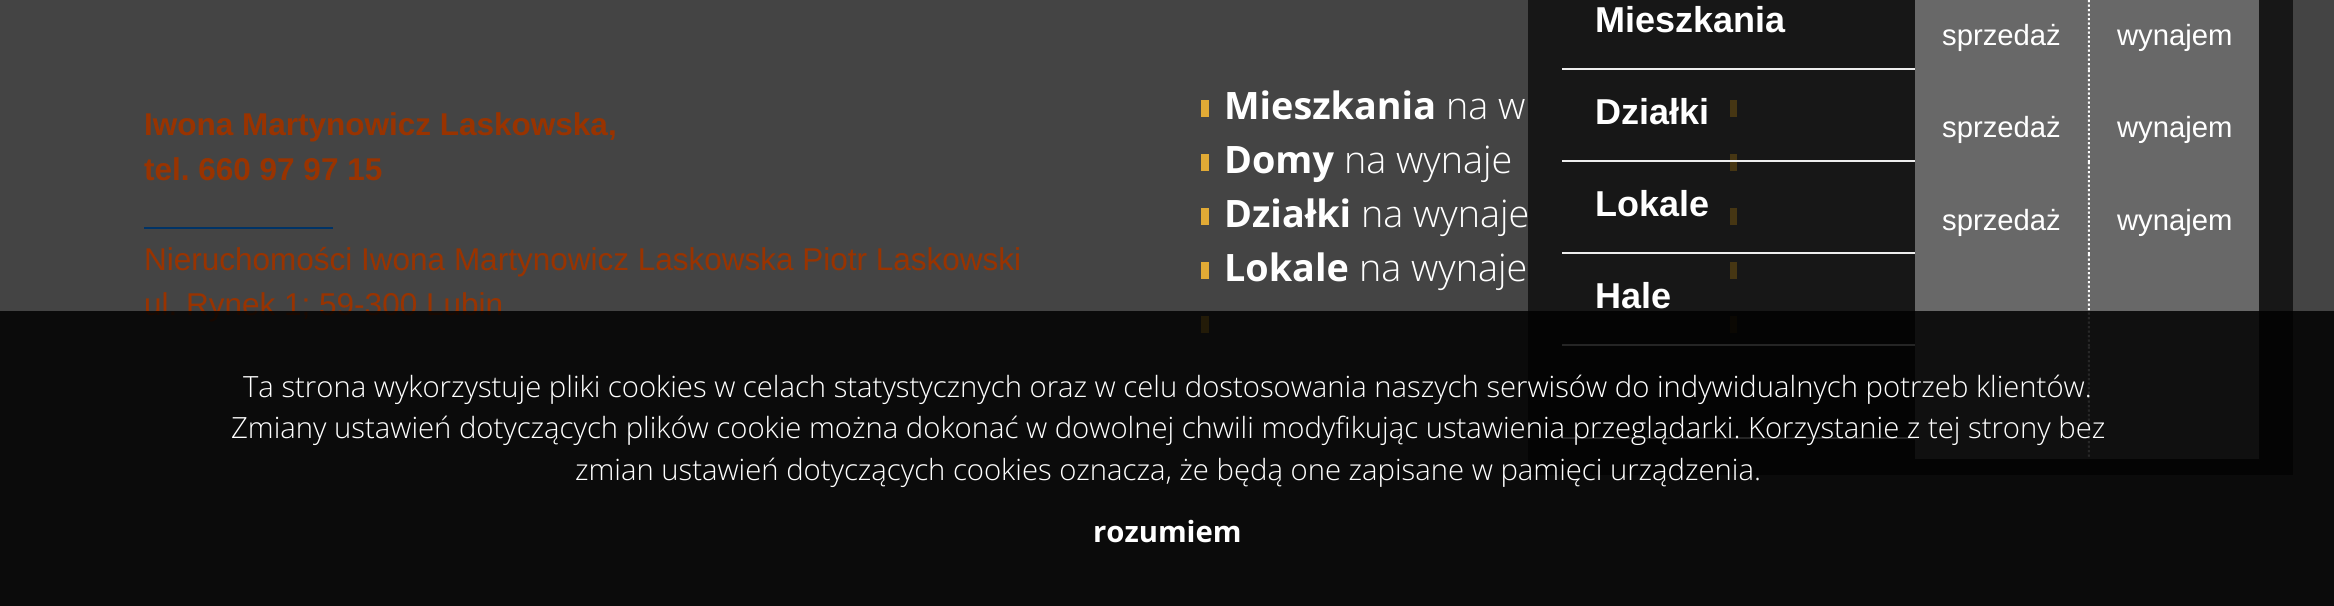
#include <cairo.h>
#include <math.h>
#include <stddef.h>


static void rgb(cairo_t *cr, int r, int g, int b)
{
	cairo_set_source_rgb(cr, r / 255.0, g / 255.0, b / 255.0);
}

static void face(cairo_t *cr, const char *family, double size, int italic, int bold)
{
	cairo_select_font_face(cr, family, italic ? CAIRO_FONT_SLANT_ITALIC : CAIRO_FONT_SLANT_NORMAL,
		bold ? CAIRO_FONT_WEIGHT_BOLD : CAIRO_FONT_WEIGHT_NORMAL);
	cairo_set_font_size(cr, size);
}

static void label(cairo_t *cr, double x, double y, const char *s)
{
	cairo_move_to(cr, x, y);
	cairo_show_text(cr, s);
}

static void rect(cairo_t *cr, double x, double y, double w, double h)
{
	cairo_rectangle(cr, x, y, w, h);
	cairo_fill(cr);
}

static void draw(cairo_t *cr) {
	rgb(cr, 68, 68, 68);
	cairo_paint(cr);
	face(cr, "Liberation Sans", 31.5, 0, 1);
	rgb(cr, 153, 51, 0);
	label(cr, 144, 135, "Iwona Martynowicz Laskowska,");
	label(cr, 144, 180, "tel. 660 97 97 15");
	rgb(cr, 0, 51, 102);
	rect(cr, 144, 227, 189, 2);
	face(cr, "Liberation Sans", 31.5, 0, 0);
	rgb(cr, 153, 51, 0);
	label(cr, 144, 270, "Nieruchomości Iwona Martynowicz Laskowska Piotr Laskowski");
	label(cr, 144, 315, "ul. Rynek 1; 59-300 Lubin");
	rgb(cr, 225, 170, 53);
	rect(cr, 1201, 100, 8, 17);
	face(cr, "Open Sans", 37.75, 0, 1);
	rgb(cr, 255, 255, 255);
	label(cr, 1224, 119, "Mieszkania");
	face(cr, "Open Sans Light", 37.75, 0, 0);
	label(cr, 1446, 119, "na w");
	rgb(cr, 225, 170, 53);
	rect(cr, 1201, 154, 8, 17);
	face(cr, "Open Sans", 37.75, 0, 1);
	rgb(cr, 255, 255, 255);
	label(cr, 1224, 173, "Domy");
	face(cr, "Open Sans Light", 37.75, 0, 0);
	label(cr, 1344, 173, "na wynaje");
	rgb(cr, 225, 170, 53);
	rect(cr, 1201, 208, 8, 17);
	face(cr, "Open Sans", 37.75, 0, 1);
	rgb(cr, 255, 255, 255);
	label(cr, 1224, 227, "Działki");
	face(cr, "Open Sans Light", 37.75, 0, 0);
	label(cr, 1361, 227, "na wynaje");
	rgb(cr, 225, 170, 53);
	rect(cr, 1201, 262, 8, 17);
	face(cr, "Open Sans", 37.75, 0, 1);
	rgb(cr, 255, 255, 255);
	label(cr, 1224, 281, "Lokale");
	face(cr, "Open Sans Light", 37.75, 0, 0);
	label(cr, 1359, 281, "na wynaje");
	rgb(cr, 225, 170, 53);
	rect(cr, 1201, 316, 8, 17);
	rect(cr, 1730, 100, 7, 17);
	rect(cr, 1730, 154, 7, 17);
	rect(cr, 1730, 208, 7, 17);
	rect(cr, 1730, 262, 7, 17);
	rect(cr, 1730, 316, 7, 17);
	cairo_set_source_rgba(cr, 0.02, 0.02, 0.02, 0.7);
	rect(cr, 1528, 0, 765, 475);
	face(cr, "Liberation Sans", 36, 0, 1);
	rgb(cr, 255, 255, 255);
	label(cr, 1595, 32, "Mieszkania");
	rgb(cr, 104, 104, 104);
	rect(cr, 1915, 0, 175, 70);
	cairo_new_path(cr);
	cairo_move_to(cr, 2089, -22.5);
	cairo_line_to(cr, 2089, 90);
	rgb(cr, 255, 255, 255);
	cairo_set_line_width(cr, 2.2);
	cairo_set_dash(cr, (double[]){2.25, 2.25}, 2, 0);
	cairo_stroke(cr);
	face(cr, "Liberation Sans", 29.25, 0, 0);
	label(cr, 1942, 45, "sprzedaż");
	rgb(cr, 104, 104, 104);
	rect(cr, 2090, 0, 169, 70);
	rgb(cr, 255, 255, 255);
	label(cr, 2117, 45, "wynajem");
	rgb(cr, 238, 238, 238);
	rect(cr, 1562, 68, 353, 2);
	face(cr, "Liberation Sans", 36, 0, 1);
	rgb(cr, 255, 255, 255);
	label(cr, 1595, 124, "Działki");
	rgb(cr, 104, 104, 104);
	rect(cr, 1915, 70, 175, 92);
	cairo_new_path(cr);
	cairo_move_to(cr, 2089, 70);
	cairo_line_to(cr, 2089, 182);
	rgb(cr, 255, 255, 255);
	cairo_stroke(cr);
	face(cr, "Liberation Sans", 29.25, 0, 0);
	label(cr, 1942, 137, "sprzedaż");
	rgb(cr, 104, 104, 104);
	rect(cr, 2090, 70, 169, 92);
	rgb(cr, 255, 255, 255);
	label(cr, 2117, 137, "wynajem");
	rgb(cr, 238, 238, 238);
	rect(cr, 1562, 160, 353, 2);
	face(cr, "Liberation Sans", 36, 0, 1);
	rgb(cr, 255, 255, 255);
	label(cr, 1595, 216, "Lokale");
	rgb(cr, 104, 104, 104);
	rect(cr, 1915, 162, 175, 92);
	cairo_new_path(cr);
	cairo_move_to(cr, 2089, 162);
	cairo_line_to(cr, 2089, 274.5);
	rgb(cr, 255, 255, 255);
	cairo_stroke(cr);
	face(cr, "Liberation Sans", 29.25, 0, 0);
	label(cr, 1942, 230, "sprzedaż");
	rgb(cr, 104, 104, 104);
	rect(cr, 2090, 162, 169, 92);
	rgb(cr, 255, 255, 255);
	label(cr, 2117, 230, "wynajem");
	rgb(cr, 238, 238, 238);
	rect(cr, 1562, 252, 353, 2);
	face(cr, "Liberation Sans", 36, 0, 1);
	rgb(cr, 255, 255, 255);
	label(cr, 1595, 308, "Hale");
	rgb(cr, 104, 104, 104);
	rect(cr, 1915, 254, 175, 93);
	cairo_new_path(cr);
	cairo_move_to(cr, 2089, 254);
	cairo_line_to(cr, 2089, 367);
	rgb(cr, 255, 255, 255);
	cairo_stroke(cr);
	rgb(cr, 104, 104, 104);
	rect(cr, 2090, 254, 169, 93);
	rgb(cr, 238, 238, 238);
	rect(cr, 1562, 344, 353, 2);
	rect(cr, 1562, 437, 353, 2);
	rgb(cr, 104, 104, 104);
	rect(cr, 1915, 347, 175, 112);
	cairo_new_path(cr);
	cairo_move_to(cr, 2089, 346.5);
	cairo_line_to(cr, 2089, 459);
	rgb(cr, 255, 255, 255);
	cairo_stroke(cr);
	rgb(cr, 104, 104, 104);
	rect(cr, 2090, 347, 169, 112);
	cairo_set_source_rgba(cr, 0, 0, 0, 0.84);
	rect(cr, 0, 311, 2334, 295);
	face(cr, "Open Sans Light", 29.25, 0, 0);
	rgb(cr, 255, 255, 255);
	label(cr, 243, 397, "Ta strona wykorzystuje pliki cookies w celach statystycznych oraz w celu dostosowania naszych serwisów do indywidualnych potrzeb klientów.");
	label(cr, 231, 438, "Zmiany ustawień dotyczących plików cookie można dokonać w dowolnej chwili modyfikując ustawienia przeglądarki. Korzystanie z tej strony bez");
	label(cr, 575, 480, "zmian ustawień dotyczących cookies oznacza, że będą one zapisane w pamięci urządzenia.");
	face(cr, "Open Sans", 29.25, 0, 1);
	label(cr, 1093, 542, "rozumiem");
}

int main(void) {
	cairo_surface_t *surface = cairo_image_surface_create(CAIRO_FORMAT_RGB24, 2334, 606);
	cairo_t *cr = cairo_create(surface);
	cairo_font_options_t *options = cairo_font_options_create();
	cairo_font_options_set_hint_metrics(options, CAIRO_HINT_METRICS_OFF);
	cairo_font_options_set_hint_style(options, CAIRO_HINT_STYLE_NONE);
	cairo_set_font_options(cr, options);
	cairo_set_miter_limit(cr, 4);
	draw(cr);
	cairo_surface_write_to_png(surface, "render.png");
	cairo_font_options_destroy(options);
	cairo_destroy(cr);
	cairo_surface_destroy(surface);
	return 0;
}
